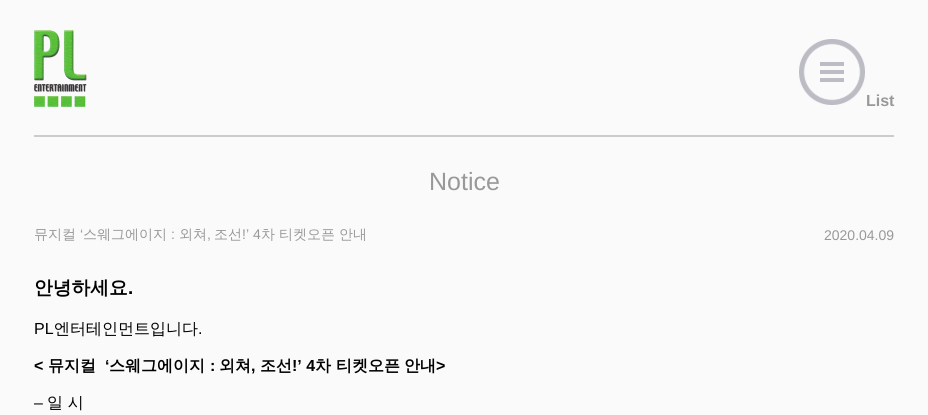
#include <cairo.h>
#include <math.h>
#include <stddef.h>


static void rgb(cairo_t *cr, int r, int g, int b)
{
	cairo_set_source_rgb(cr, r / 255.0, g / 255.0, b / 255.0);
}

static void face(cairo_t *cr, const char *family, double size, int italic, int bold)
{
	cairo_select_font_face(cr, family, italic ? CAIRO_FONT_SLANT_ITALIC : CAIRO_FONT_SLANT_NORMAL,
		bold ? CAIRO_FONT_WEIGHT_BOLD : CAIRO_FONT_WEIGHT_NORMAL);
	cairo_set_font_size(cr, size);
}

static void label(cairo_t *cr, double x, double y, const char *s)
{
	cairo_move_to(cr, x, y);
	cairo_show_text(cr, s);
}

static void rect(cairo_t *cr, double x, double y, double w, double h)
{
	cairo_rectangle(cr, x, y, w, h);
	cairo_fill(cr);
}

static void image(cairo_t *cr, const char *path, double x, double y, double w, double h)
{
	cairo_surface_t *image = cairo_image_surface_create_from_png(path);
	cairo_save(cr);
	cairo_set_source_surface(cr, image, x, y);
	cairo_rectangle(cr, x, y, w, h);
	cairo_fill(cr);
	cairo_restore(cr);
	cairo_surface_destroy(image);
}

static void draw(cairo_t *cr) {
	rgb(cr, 250, 250, 250);
	cairo_paint(cr);
	rgb(cr, 204, 204, 204);
	rect(cr, 34, 135, 860, 2);
	image(cr, "image0.png", 34, 30, 53, 77);
	image(cr, "image1.png", 799, 39, 66, 66);
	face(cr, "Liberation Sans", 16, 0, 1);
	rgb(cr, 153, 153, 153);
	label(cr, 866, 106, "List");
	face(cr, "Liberation Sans", 25, 0, 0);
	label(cr, 429, 190, "Notice");
	face(cr, "WenQuanYi Zen Hei Medium", 14, 0, 0);
	label(cr, 34, 239, "뮤지컬");
	face(cr, "Liberation Sans", 14, 0, 0);
	label(cr, 80, 239, "‘");
	face(cr, "WenQuanYi Zen Hei Medium", 14, 0, 0);
	label(cr, 83, 239, "스웨그에이지");
	face(cr, "Liberation Sans", 14, 0, 0);
	label(cr, 171, 239, ":");
	face(cr, "WenQuanYi Zen Hei Medium", 14, 0, 0);
	label(cr, 179, 239, "외쳐");
	face(cr, "Liberation Sans", 14, 0, 0);
	label(cr, 207, 239, ",");
	face(cr, "WenQuanYi Zen Hei Medium", 14, 0, 0);
	label(cr, 214, 239, "조선");
	face(cr, "Liberation Sans", 14, 0, 0);
	label(cr, 242, 239, "!’ 4");
	face(cr, "WenQuanYi Zen Hei Medium", 14, 0, 0);
	label(cr, 261, 239, "차");
	label(cr, 279, 239, "티켓오픈");
	label(cr, 339, 239, "안내");
	face(cr, "Liberation Sans", 14, 0, 0);
	label(cr, 824, 240, "2020.04.09");
	face(cr, "WenQuanYi Zen Hei", 18.75, 0, 1);
	rgb(cr, 0, 0, 0);
	label(cr, 34, 294, "안녕하세요");
	face(cr, "Liberation Sans", 18.75, 0, 1);
	label(cr, 128, 294, ".");
	face(cr, "Liberation Sans", 16, 0, 0);
	label(cr, 34, 334, "PL");
	face(cr, "WenQuanYi Zen Hei Medium", 16, 0, 0);
	label(cr, 54, 334, "엔터테인먼트입니다");
	face(cr, "Liberation Sans", 16, 0, 0);
	label(cr, 198, 334, ".");
	face(cr, "Liberation Sans", 16, 0, 1);
	label(cr, 34, 371, "<");
	face(cr, "WenQuanYi Zen Hei", 16, 0, 1);
	label(cr, 48, 371, "뮤지컬");
	face(cr, "Liberation Sans", 16, 0, 1);
	label(cr, 105, 371, "‘");
	face(cr, "WenQuanYi Zen Hei", 16, 0, 1);
	label(cr, 109, 371, "스웨그에이지");
	face(cr, "Liberation Sans", 16, 0, 1);
	label(cr, 210, 371, ":");
	face(cr, "WenQuanYi Zen Hei", 16, 0, 1);
	label(cr, 219, 371, "외쳐");
	face(cr, "Liberation Sans", 16, 0, 1);
	label(cr, 251, 371, ",");
	face(cr, "WenQuanYi Zen Hei", 16, 0, 1);
	label(cr, 260, 371, "조선");
	face(cr, "Liberation Sans", 16, 0, 1);
	label(cr, 292, 371, "!’ 4");
	face(cr, "WenQuanYi Zen Hei", 16, 0, 1);
	label(cr, 315, 371, "차");
	label(cr, 336, 371, "티켓오픈");
	label(cr, 404, 371, "안내");
	face(cr, "Liberation Sans", 16, 0, 1);
	label(cr, 436, 371, ">");
	face(cr, "Liberation Sans", 16, 0, 0);
	label(cr, 34, 408, "–");
	face(cr, "WenQuanYi Zen Hei Medium", 16, 0, 0);
	label(cr, 47, 408, "일 시");
}

int main(void) {
	cairo_surface_t *surface = cairo_image_surface_create(CAIRO_FORMAT_RGB24, 928, 415);
	cairo_t *cr = cairo_create(surface);
	cairo_font_options_t *options = cairo_font_options_create();
	cairo_font_options_set_hint_metrics(options, CAIRO_HINT_METRICS_OFF);
	cairo_font_options_set_hint_style(options, CAIRO_HINT_STYLE_NONE);
	cairo_set_font_options(cr, options);
	cairo_set_miter_limit(cr, 4);
	draw(cr);
	cairo_surface_write_to_png(surface, "render.png");
	cairo_font_options_destroy(options);
	cairo_destroy(cr);
	cairo_surface_destroy(surface);
	return 0;
}
